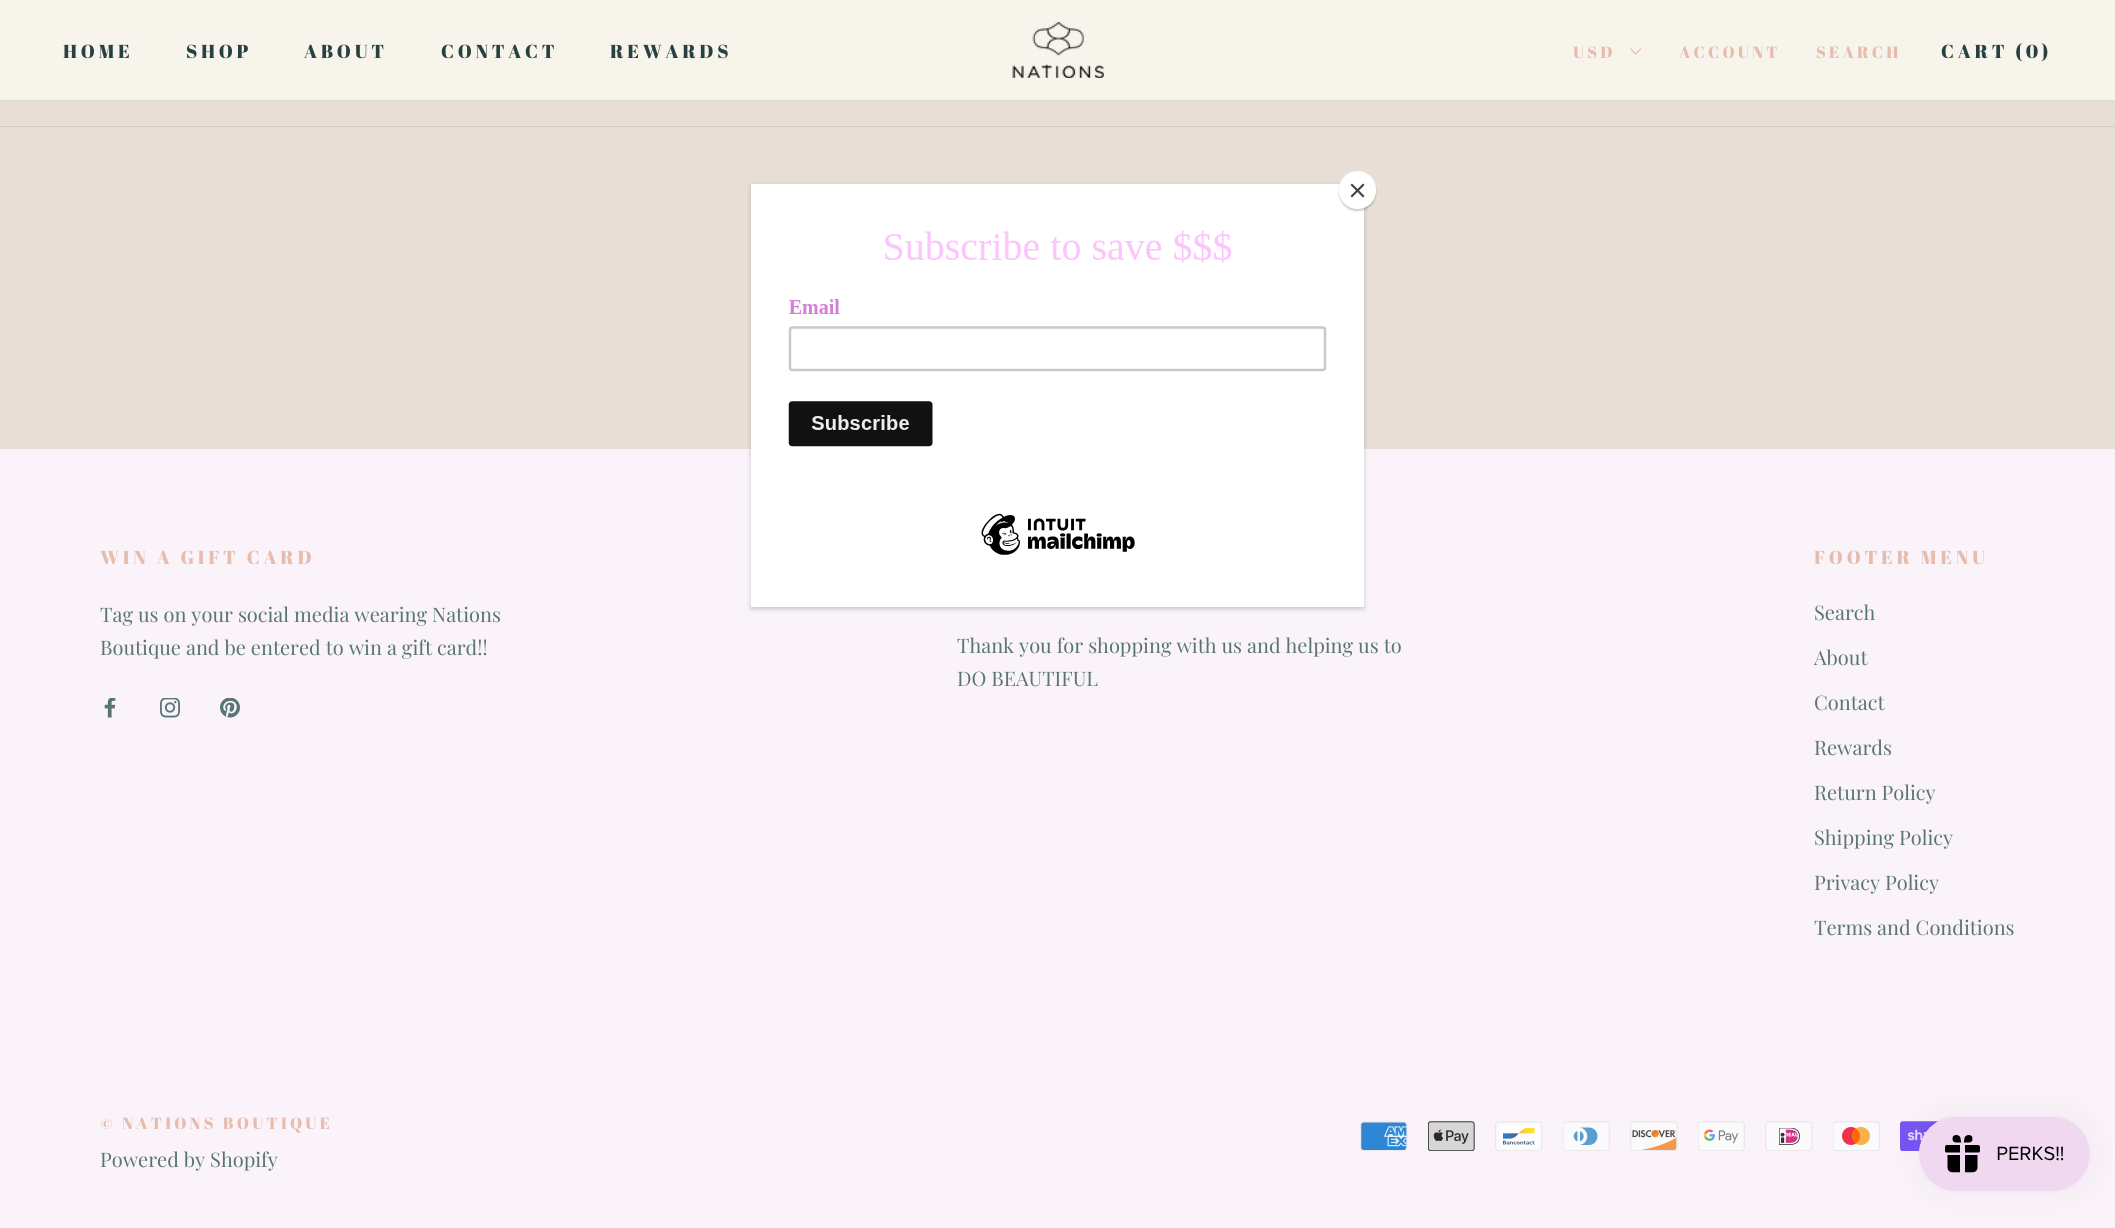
#include <cairo.h>
#include <math.h>
#include <stddef.h>


static void rgb(cairo_t *cr, int r, int g, int b)
{
	cairo_set_source_rgb(cr, r / 255.0, g / 255.0, b / 255.0);
}

static void face(cairo_t *cr, const char *family, double size, int italic, int bold)
{
	cairo_select_font_face(cr, family, italic ? CAIRO_FONT_SLANT_ITALIC : CAIRO_FONT_SLANT_NORMAL,
		bold ? CAIRO_FONT_WEIGHT_BOLD : CAIRO_FONT_WEIGHT_NORMAL);
	cairo_set_font_size(cr, size);
}

static void label(cairo_t *cr, double x, double y, const char *s)
{
	cairo_move_to(cr, x, y);
	cairo_show_text(cr, s);
}

static void tracked(cairo_t *cr, double x, double y, const char *s, double letter, double word)
{
	cairo_move_to(cr, x, y);
	while (*s) {
		char ch[5] = {0};
		int n = 0;
		do ch[n++] = *s++; while ((*s & 0xC0) == 0x80);
		cairo_show_text(cr, ch);
		cairo_rel_move_to(cr, letter + word * (*ch == ' '), 0);
	}
}

static void rect(cairo_t *cr, double x, double y, double w, double h)
{
	cairo_rectangle(cr, x, y, w, h);
	cairo_fill(cr);
}

static void rrect(cairo_t *cr, double x, double y, double w, double h, double r)
{
	cairo_new_sub_path(cr);
	cairo_arc(cr, x + w - r, y + h - r, r, 0, M_PI / 2);
	cairo_arc(cr, x + r, y + h - r, r, M_PI / 2, M_PI);
	cairo_arc(cr, x + r, y + r, r, M_PI, 1.5 * M_PI);
	cairo_arc(cr, x + w - r, y + r, r, 1.5 * M_PI, 2 * M_PI);
	cairo_close_path(cr);
}

static void soft_shadow(cairo_t *cr, double x, double y, double w, double h, double r, double blur, double alpha)
{
	cairo_push_group_with_content(cr, CAIRO_CONTENT_ALPHA);
	cairo_set_operator(cr, CAIRO_OPERATOR_SOURCE);
	for (int i = 15; i >= -15 && fmin(w, h) + blur * i / 3 > 0; i -= 2) {
		double e = blur * i / 6;
		cairo_set_source_rgba(cr, 0, 0, 0, alpha * erfc((i - 1) / 8.5) / 2);
		rrect(cr, x - e, y - e, w + 2 * e, h + 2 * e, fmax(0, fmin(r + e + blur * .6, fmin(w, h) / 2 + e)));
		cairo_fill(cr);
	}
	cairo_pattern_t *soft = cairo_pop_group(cr);
	cairo_mask(cr, soft);
	cairo_pattern_destroy(soft);
}

static void image(cairo_t *cr, const char *path, double x, double y, double w, double h)
{
	cairo_surface_t *image = cairo_image_surface_create_from_png(path);
	cairo_save(cr);
	cairo_set_source_surface(cr, image, x, y);
	cairo_rectangle(cr, x, y, w, h);
	cairo_fill(cr);
	cairo_restore(cr);
	cairo_surface_destroy(image);
}

static void draw(cairo_t *cr) {
	rgb(cr, 232, 222, 213);
	cairo_paint(cr);
	rgb(cr, 247, 244, 236);
	rect(cr, 0, 0, 2115, 100);
	rgb(cr, 216, 217, 210);
	rect(cr, 0, 100, 2115, 1);
	face(cr, "Abril Fatface", 18.75, 0, 0);
	rgb(cr, 39, 64, 64);
	tracked(cr, 63, 58, "HOME", 3.75, 0);
	tracked(cr, 186, 58, "SHOP", 3.75, 0);
	tracked(cr, 304, 58, "ABOUT", 3.75, 0);
	tracked(cr, 441, 58, "CONTACT", 3.75, 0);
	tracked(cr, 610, 58, "REWARDS", 3.75, 0);
	image(cr, "image0.png", 1012, 22, 93, 56);
	face(cr, "Abril Fatface", 16.25, 0, 0);
	rgb(cr, 231, 188, 173);
	tracked(cr, 1573, 58, "USD", 3.25, 0);
	cairo_new_path(cr);
	cairo_move_to(cr, 1640.5, 49);
	cairo_line_to(cr, 1635.5, 54);
	cairo_line_to(cr, 1631, 49);
	cairo_set_line_width(cr, 1.2);
	cairo_set_line_cap(cr, CAIRO_LINE_CAP_SQUARE);
	cairo_stroke(cr);
	tracked(cr, 1679, 58, "ACCOUNT", 3.25, 0);
	tracked(cr, 1816, 58, "SEARCH", 3.25, 0);
	face(cr, "Abril Fatface", 18.75, 0, 0);
	rgb(cr, 39, 64, 64);
	tracked(cr, 1941, 58, "CART (0)", 3.75, 0);
	rgb(cr, 210, 206, 198);
	rect(cr, 0, 126, 2115, 1);
	rgb(cr, 250, 244, 250);
	rect(cr, 0, 449, 2115, 779);
	rgb(cr, 231, 188, 173);
	tracked(cr, 100, 564, "WIN A GIFT CARD", 3.75, 0);
	face(cr, "Playfair Display", 20, 0, 0);
	rgb(cr, 88, 116, 116);
	label(cr, 100, 622, "Tag us on your social media wearing Nations");
	label(cr, 100, 655, "Boutique and be entered to win a gift card!!");
	image(cr, "image1.png", 104, 698, 12, 20);
	image(cr, "image2.png", 160, 698, 20, 20);
	image(cr, "image3.png", 220, 698, 20, 20);
	label(cr, 957, 653, "Thank you for shopping with us and helping us to");
	label(cr, 957, 686, "DO BEAUTIFUL");
	face(cr, "Abril Fatface", 18.75, 0, 0);
	rgb(cr, 231, 188, 173);
	tracked(cr, 1814, 564, "FOOTER MENU", 3.75, 0);
	face(cr, "Playfair Display", 20, 0, 0);
	rgb(cr, 88, 116, 116);
	label(cr, 1814, 620, "Search");
	label(cr, 1814, 665, "About");
	label(cr, 1814, 710, "Contact");
	label(cr, 1814, 755, "Rewards");
	label(cr, 1814, 800, "Return Policy");
	label(cr, 1814, 845, "Shipping Policy");
	label(cr, 1814, 890, "Privacy Policy");
	label(cr, 1814, 935, "Terms and Conditions");
	face(cr, "Abril Fatface", 16.25, 0, 0);
	rgb(cr, 231, 188, 173);
	tracked(cr, 100, 1129, "© NATIONS BOUTIQUE", 3.25, 0);
	face(cr, "Playfair Display", 20, 0, 0);
	rgb(cr, 88, 116, 116);
	label(cr, 100, 1167, "Powered by Shopify");
	image(cr, "image4.png", 1360, 1121, 48, 30);
	image(cr, "image5.png", 1428, 1121, 47, 30);
	image(cr, "image6.png", 1495, 1121, 48, 30);
	image(cr, "image7.png", 1563, 1121, 47, 30);
	image(cr, "image8.png", 1630, 1121, 48, 30);
	image(cr, "image9.png", 1698, 1121, 47, 30);
	image(cr, "image10.png", 1765, 1121, 48, 30);
	image(cr, "image11.png", 1833, 1121, 47, 30);
	image(cr, "image12.png", 1900, 1121, 39, 30);
	rgb(cr, 0, 0, 0);
	soft_shadow(cr, 751, 186, 613, 423, 0, 2.5, 0.2);
	image(cr, "image13.png", 751, 184, 613, 423);
	soft_shadow(cr, 1339, 174, 37, 37, 18.5, 1, 0.2);
	rgb(cr, 255, 255, 255);
	rrect(cr, 1339, 171, 37, 38, 18.5);
	cairo_fill(cr);
	rgb(cr, 65, 65, 65);
	cairo_new_path(cr);
	cairo_move_to(cr, 1363, 183.5);
	cairo_line_to(cr, 1364.5, 185);
	cairo_line_to(cr, 1352, 197.5);
	cairo_line_to(cr, 1350.5, 196);
	cairo_close_path(cr);
	cairo_fill(cr);
	cairo_new_path(cr);
	cairo_move_to(cr, 1350.5, 185);
	cairo_line_to(cr, 1352, 183.5);
	cairo_line_to(cr, 1364.5, 196);
	cairo_line_to(cr, 1363, 197.5);
	cairo_close_path(cr);
	cairo_fill(cr);
	rgb(cr, 0, 0, 0);
	soft_shadow(cr, 1919, 1116, 171, 75, 37.5, 15.5, 0.05);
	image(cr, "image14.png", 1919, 1116, 171, 75);
}

int main(void) {
	cairo_surface_t *surface = cairo_image_surface_create(CAIRO_FORMAT_RGB24, 2115, 1228);
	cairo_t *cr = cairo_create(surface);
	cairo_font_options_t *options = cairo_font_options_create();
	cairo_font_options_set_hint_metrics(options, CAIRO_HINT_METRICS_OFF);
	cairo_font_options_set_hint_style(options, CAIRO_HINT_STYLE_NONE);
	cairo_set_font_options(cr, options);
	cairo_set_miter_limit(cr, 4);
	draw(cr);
	cairo_surface_write_to_png(surface, "render.png");
	cairo_font_options_destroy(options);
	cairo_destroy(cr);
	cairo_surface_destroy(surface);
	return 0;
}
